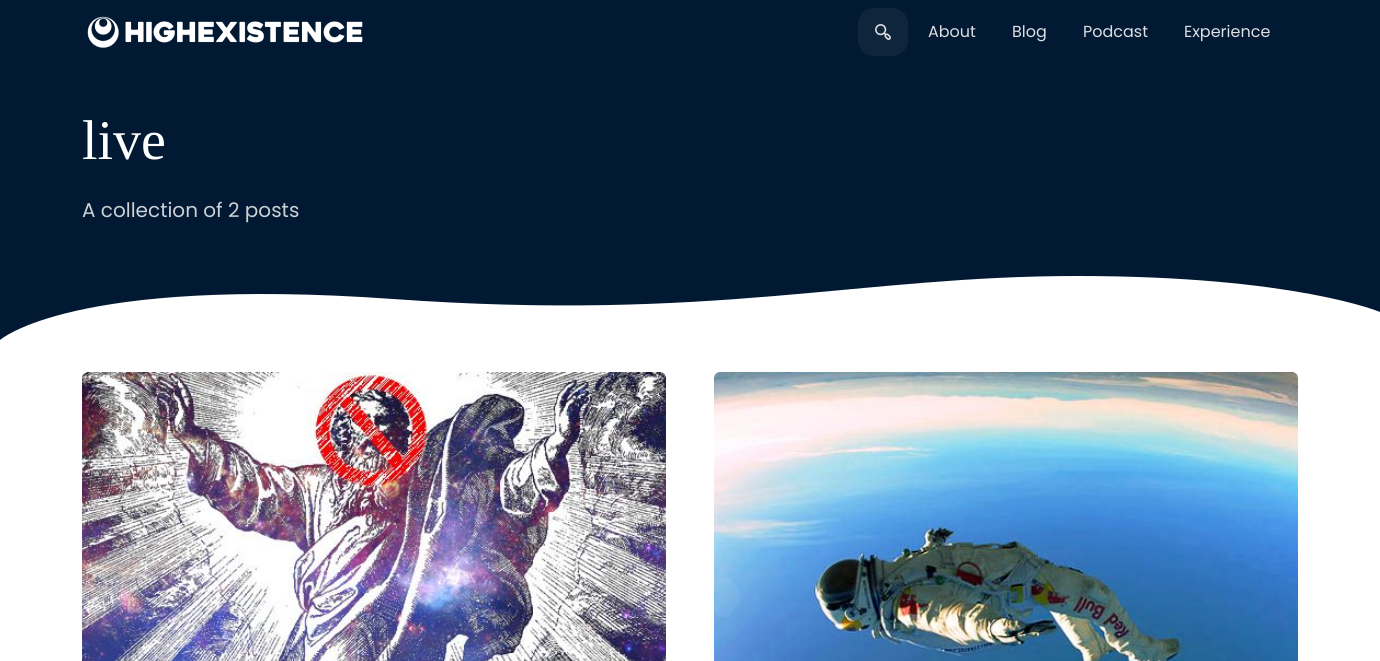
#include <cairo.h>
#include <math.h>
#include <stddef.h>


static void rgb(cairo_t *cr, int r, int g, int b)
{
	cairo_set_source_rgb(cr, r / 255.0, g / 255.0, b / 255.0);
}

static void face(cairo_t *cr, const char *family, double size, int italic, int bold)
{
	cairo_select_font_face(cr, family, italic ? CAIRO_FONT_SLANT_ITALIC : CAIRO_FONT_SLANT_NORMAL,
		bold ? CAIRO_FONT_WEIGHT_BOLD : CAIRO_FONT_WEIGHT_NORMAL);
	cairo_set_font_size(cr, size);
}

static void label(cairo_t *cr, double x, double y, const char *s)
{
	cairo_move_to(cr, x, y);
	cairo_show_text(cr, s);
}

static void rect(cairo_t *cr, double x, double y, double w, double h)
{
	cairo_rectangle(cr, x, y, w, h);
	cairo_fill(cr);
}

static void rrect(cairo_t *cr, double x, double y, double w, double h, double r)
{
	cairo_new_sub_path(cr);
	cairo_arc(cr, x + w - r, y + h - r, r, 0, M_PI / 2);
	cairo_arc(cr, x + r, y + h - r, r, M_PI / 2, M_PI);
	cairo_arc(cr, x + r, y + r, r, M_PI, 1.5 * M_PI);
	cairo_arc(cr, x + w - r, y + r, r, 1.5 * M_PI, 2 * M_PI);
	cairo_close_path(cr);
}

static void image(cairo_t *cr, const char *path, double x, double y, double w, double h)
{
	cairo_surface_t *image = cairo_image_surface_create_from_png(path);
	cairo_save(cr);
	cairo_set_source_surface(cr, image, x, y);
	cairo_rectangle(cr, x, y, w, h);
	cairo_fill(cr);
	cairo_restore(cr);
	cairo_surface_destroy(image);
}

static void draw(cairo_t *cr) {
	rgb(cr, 255, 255, 255);
	cairo_paint(cr);
	rgb(cr, 1, 25, 50);
	rect(cr, 0, 0, 1380, 340);
	image(cr, "image0.png", 87, 16, 276, 32);
	rgb(cr, 14, 37, 60);
	rrect(cr, 858, 8, 50, 48, 16);
	cairo_fill(cr);
	image(cr, "image1.png", 875, 24, 16, 16);
	face(cr, "Poppins", 16, 0, 0);
	rgb(cr, 222, 222, 227);
	label(cr, 928, 37, "About");
	label(cr, 1012, 37, "Blog");
	label(cr, 1083, 37, "Podcast");
	label(cr, 1184, 37, "Experience");
	face(cr, "Liberation Serif", 56, 0, 0);
	rgb(cr, 255, 255, 255);
	label(cr, 82, 159, "live");
	face(cr, "Poppins", 20, 0, 0);
	rgb(cr, 204, 209, 214);
	label(cr, 82, 217, "A collection of 2 posts");
	cairo_save(cr);
	cairo_rectangle(cr, 0, 276, 1380, 96);
	cairo_clip(cr);
	rgb(cr, 255, 255, 255);
	cairo_new_path(cr);
	cairo_move_to(cr, 0, 340);
	cairo_curve_to(cr, 0, 340, 71, 276, 393, 299);
	cairo_curve_to(cr, 714, 322, 858, 276, 1077, 276);
	cairo_curve_to(cr, 1295, 276, 1380, 312, 1380, 312);
	cairo_line_to(cr, 1380, 373);
	cairo_line_to(cr, 0, 373);
	cairo_close_path(cr);
	cairo_fill(cr);
	cairo_restore(cr);
	image(cr, "image2.png", 82, 372, 584, 289);
	image(cr, "image3.png", 714, 372, 584, 289);
}

int main(void) {
	cairo_surface_t *surface = cairo_image_surface_create(CAIRO_FORMAT_RGB24, 1380, 661);
	cairo_t *cr = cairo_create(surface);
	cairo_font_options_t *options = cairo_font_options_create();
	cairo_font_options_set_hint_metrics(options, CAIRO_HINT_METRICS_OFF);
	cairo_font_options_set_hint_style(options, CAIRO_HINT_STYLE_NONE);
	cairo_set_font_options(cr, options);
	cairo_set_miter_limit(cr, 4);
	draw(cr);
	cairo_surface_write_to_png(surface, "render.png");
	cairo_font_options_destroy(options);
	cairo_destroy(cr);
	cairo_surface_destroy(surface);
	return 0;
}
